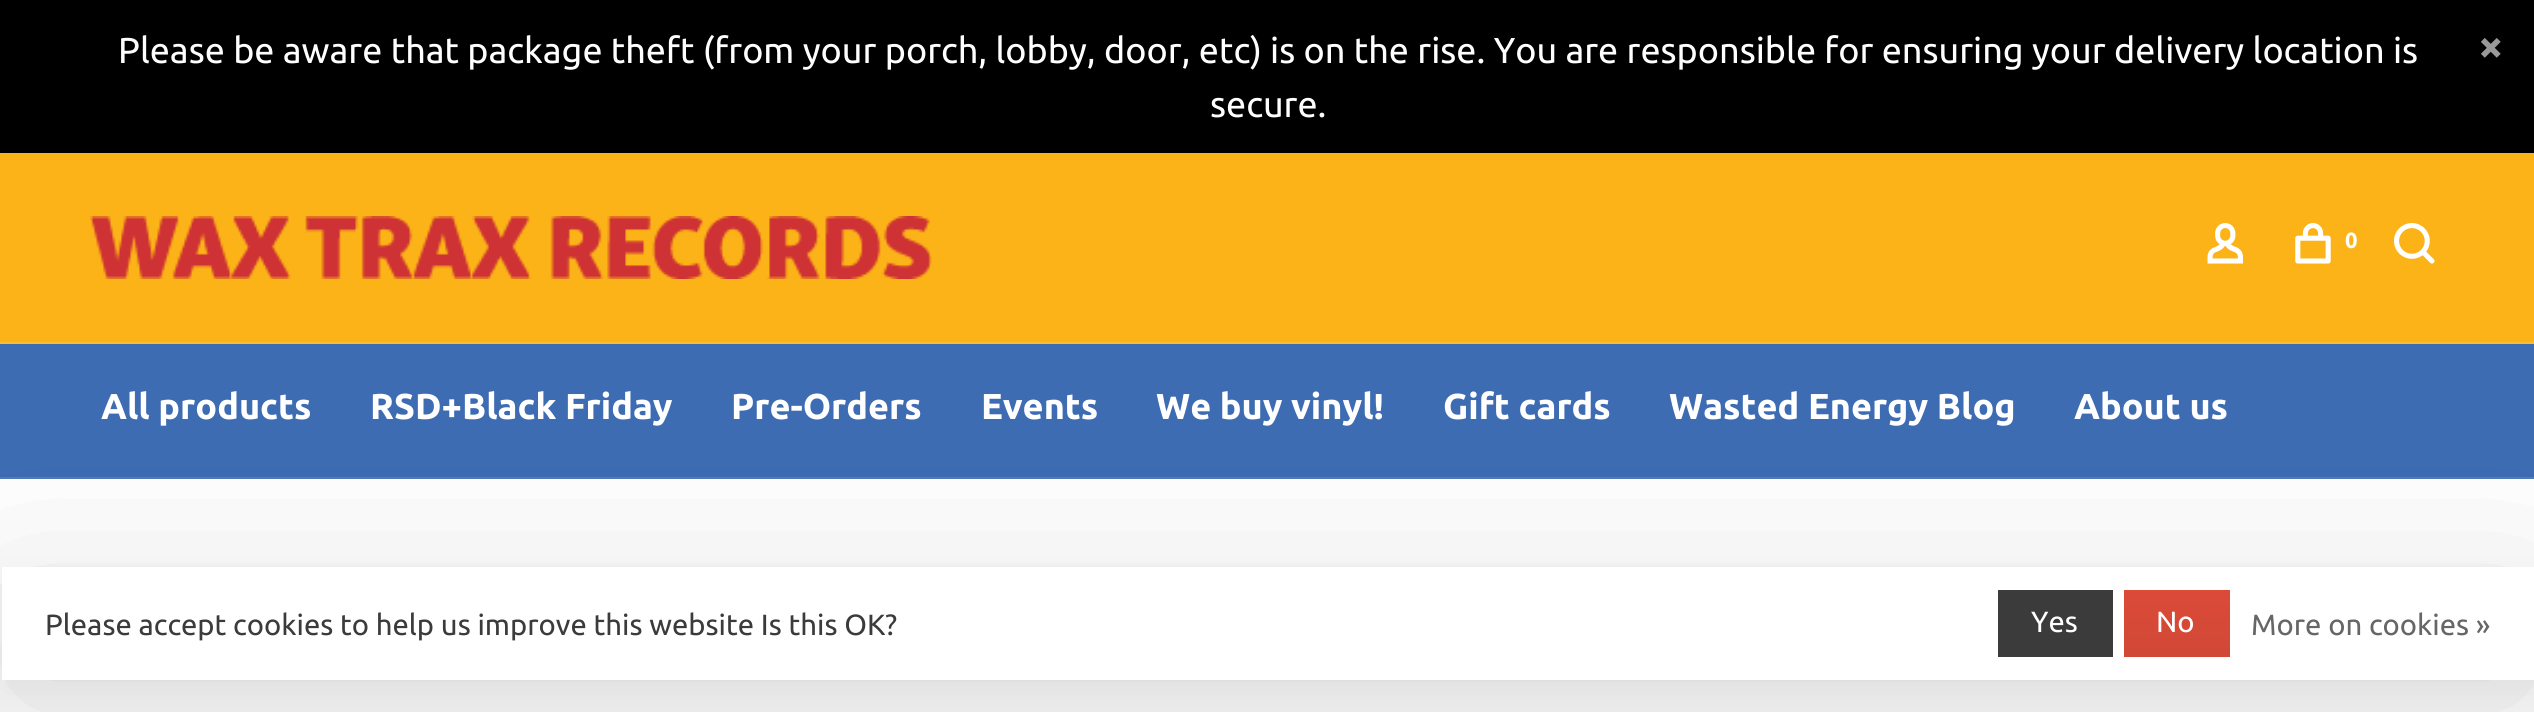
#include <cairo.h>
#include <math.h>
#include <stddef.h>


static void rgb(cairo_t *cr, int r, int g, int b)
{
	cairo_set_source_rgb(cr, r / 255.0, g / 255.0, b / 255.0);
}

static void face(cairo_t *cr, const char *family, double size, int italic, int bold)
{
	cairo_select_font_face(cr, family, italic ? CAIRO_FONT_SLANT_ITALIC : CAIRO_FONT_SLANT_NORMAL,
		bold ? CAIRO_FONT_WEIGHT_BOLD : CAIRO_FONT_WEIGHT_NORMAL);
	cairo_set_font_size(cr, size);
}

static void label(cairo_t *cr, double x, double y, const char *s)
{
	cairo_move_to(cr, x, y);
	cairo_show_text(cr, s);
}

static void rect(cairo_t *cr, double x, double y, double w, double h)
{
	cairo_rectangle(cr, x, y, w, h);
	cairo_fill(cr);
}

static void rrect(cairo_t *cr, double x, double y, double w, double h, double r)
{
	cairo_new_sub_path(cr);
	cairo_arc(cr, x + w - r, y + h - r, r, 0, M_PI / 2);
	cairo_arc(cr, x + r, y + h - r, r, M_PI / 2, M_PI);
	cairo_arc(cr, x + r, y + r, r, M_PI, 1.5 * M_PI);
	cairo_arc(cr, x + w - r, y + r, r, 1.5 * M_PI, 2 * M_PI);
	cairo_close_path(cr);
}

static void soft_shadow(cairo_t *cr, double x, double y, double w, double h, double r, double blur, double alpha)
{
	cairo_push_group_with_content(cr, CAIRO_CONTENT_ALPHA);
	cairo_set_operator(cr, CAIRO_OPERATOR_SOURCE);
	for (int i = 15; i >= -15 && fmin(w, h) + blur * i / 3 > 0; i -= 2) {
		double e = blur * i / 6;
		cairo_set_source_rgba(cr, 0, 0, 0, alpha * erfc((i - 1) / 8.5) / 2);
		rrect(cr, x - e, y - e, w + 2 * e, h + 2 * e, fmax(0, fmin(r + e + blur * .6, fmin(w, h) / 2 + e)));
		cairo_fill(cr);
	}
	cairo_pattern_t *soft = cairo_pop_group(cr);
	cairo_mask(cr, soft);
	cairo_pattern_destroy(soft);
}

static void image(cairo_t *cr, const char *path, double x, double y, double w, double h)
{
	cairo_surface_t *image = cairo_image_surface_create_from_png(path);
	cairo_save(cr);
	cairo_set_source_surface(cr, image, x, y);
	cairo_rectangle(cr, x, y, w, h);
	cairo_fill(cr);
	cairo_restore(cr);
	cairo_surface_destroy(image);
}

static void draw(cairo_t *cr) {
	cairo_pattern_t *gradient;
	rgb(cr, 255, 255, 255);
	cairo_paint(cr);
	rgb(cr, 0, 0, 0);
	rect(cr, 0, 0, 2534, 153);
	face(cr, "Ubuntu", 36, 0, 0);
	rgb(cr, 255, 255, 255);
	label(cr, 118, 63, "Please be aware that package theft (from your porch, lobby, door, etc) is on the rise. You are responsible for ensuring your delivery location is");
	image(cr, "image0.png", 2481, 38, 20, 20);
	label(cr, 1210, 117, "secure.");
	rgb(cr, 251, 179, 24);
	rect(cr, 0, 153, 2534, 189);
	rgb(cr, 251, 187, 47);
	rect(cr, 0, 342, 2534, 2);
	image(cr, "image1.png", 90, 216, 842, 63);
	image(cr, "image2.png", 2207, 223, 36, 41);
	image(cr, "image3.png", 2295, 223, 36, 41);
	face(cr, "Ubuntu", 22, 0, 1);
	rgb(cr, 255, 255, 255);
	label(cr, 2345, 248, "0");
	image(cr, "image4.png", 2394, 223, 41, 41);
	rgb(cr, 62, 108, 179);
	rect(cr, 0, 344, 2534, 133);
	rgb(cr, 81, 123, 187);
	rect(cr, 0, 477, 2534, 2);
	face(cr, "Ubuntu", 36, 0, 1);
	rgb(cr, 255, 255, 255);
	label(cr, 101, 419, "All products");
	label(cr, 370, 419, "RSD+Black Friday");
	label(cr, 731, 419, "Pre-Orders");
	label(cr, 981, 419, "Events");
	label(cr, 1156, 419, "We buy vinyl!");
	label(cr, 1443, 419, "Gift cards");
	label(cr, 1669, 419, "Wasted Energy Blog");
	label(cr, 2074, 419, "About us");
	rgb(cr, 0, 0, 0);
	soft_shadow(cr, 2, 581, 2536, 112, 0, 17, 0.05);
	soft_shadow(cr, 16, 612, 2509, 86, 0, 97, 0.15);
	rgb(cr, 255, 255, 255);
	rect(cr, 2, 567, 2532, 113);
	face(cr, "Ubuntu", 29.25, 0, 0);
	rgb(cr, 59, 59, 59);
	label(cr, 45, 635, "Please accept cookies to help us improve this website Is this OK?");
	rect(cr, 1998, 590, 115, 67);
	rgb(cr, 255, 255, 255);
	label(cr, 2031, 632, "Yes");
	gradient = cairo_pattern_create_linear(2176, 590, 2176, 657);
	cairo_pattern_add_color_stop_rgba(gradient, 0, 0.863, 0.29, 0.22, 1);
	cairo_pattern_add_color_stop_rgba(gradient, 1, 0.82, 0.282, 0.212, 1);
	cairo_set_source(cr, gradient);
	cairo_pattern_destroy(gradient);
	rect(cr, 2124, 590, 106, 67);
	rgb(cr, 255, 255, 255);
	label(cr, 2156, 632, "No");
	rgb(cr, 102, 102, 102);
	label(cr, 2251, 635, "More on cookies »");
}

int main(void) {
	cairo_surface_t *surface = cairo_image_surface_create(CAIRO_FORMAT_RGB24, 2534, 712);
	cairo_t *cr = cairo_create(surface);
	cairo_font_options_t *options = cairo_font_options_create();
	cairo_font_options_set_hint_metrics(options, CAIRO_HINT_METRICS_OFF);
	cairo_font_options_set_hint_style(options, CAIRO_HINT_STYLE_NONE);
	cairo_set_font_options(cr, options);
	cairo_set_miter_limit(cr, 4);
	draw(cr);
	cairo_surface_write_to_png(surface, "render.png");
	cairo_font_options_destroy(options);
	cairo_destroy(cr);
	cairo_surface_destroy(surface);
	return 0;
}
